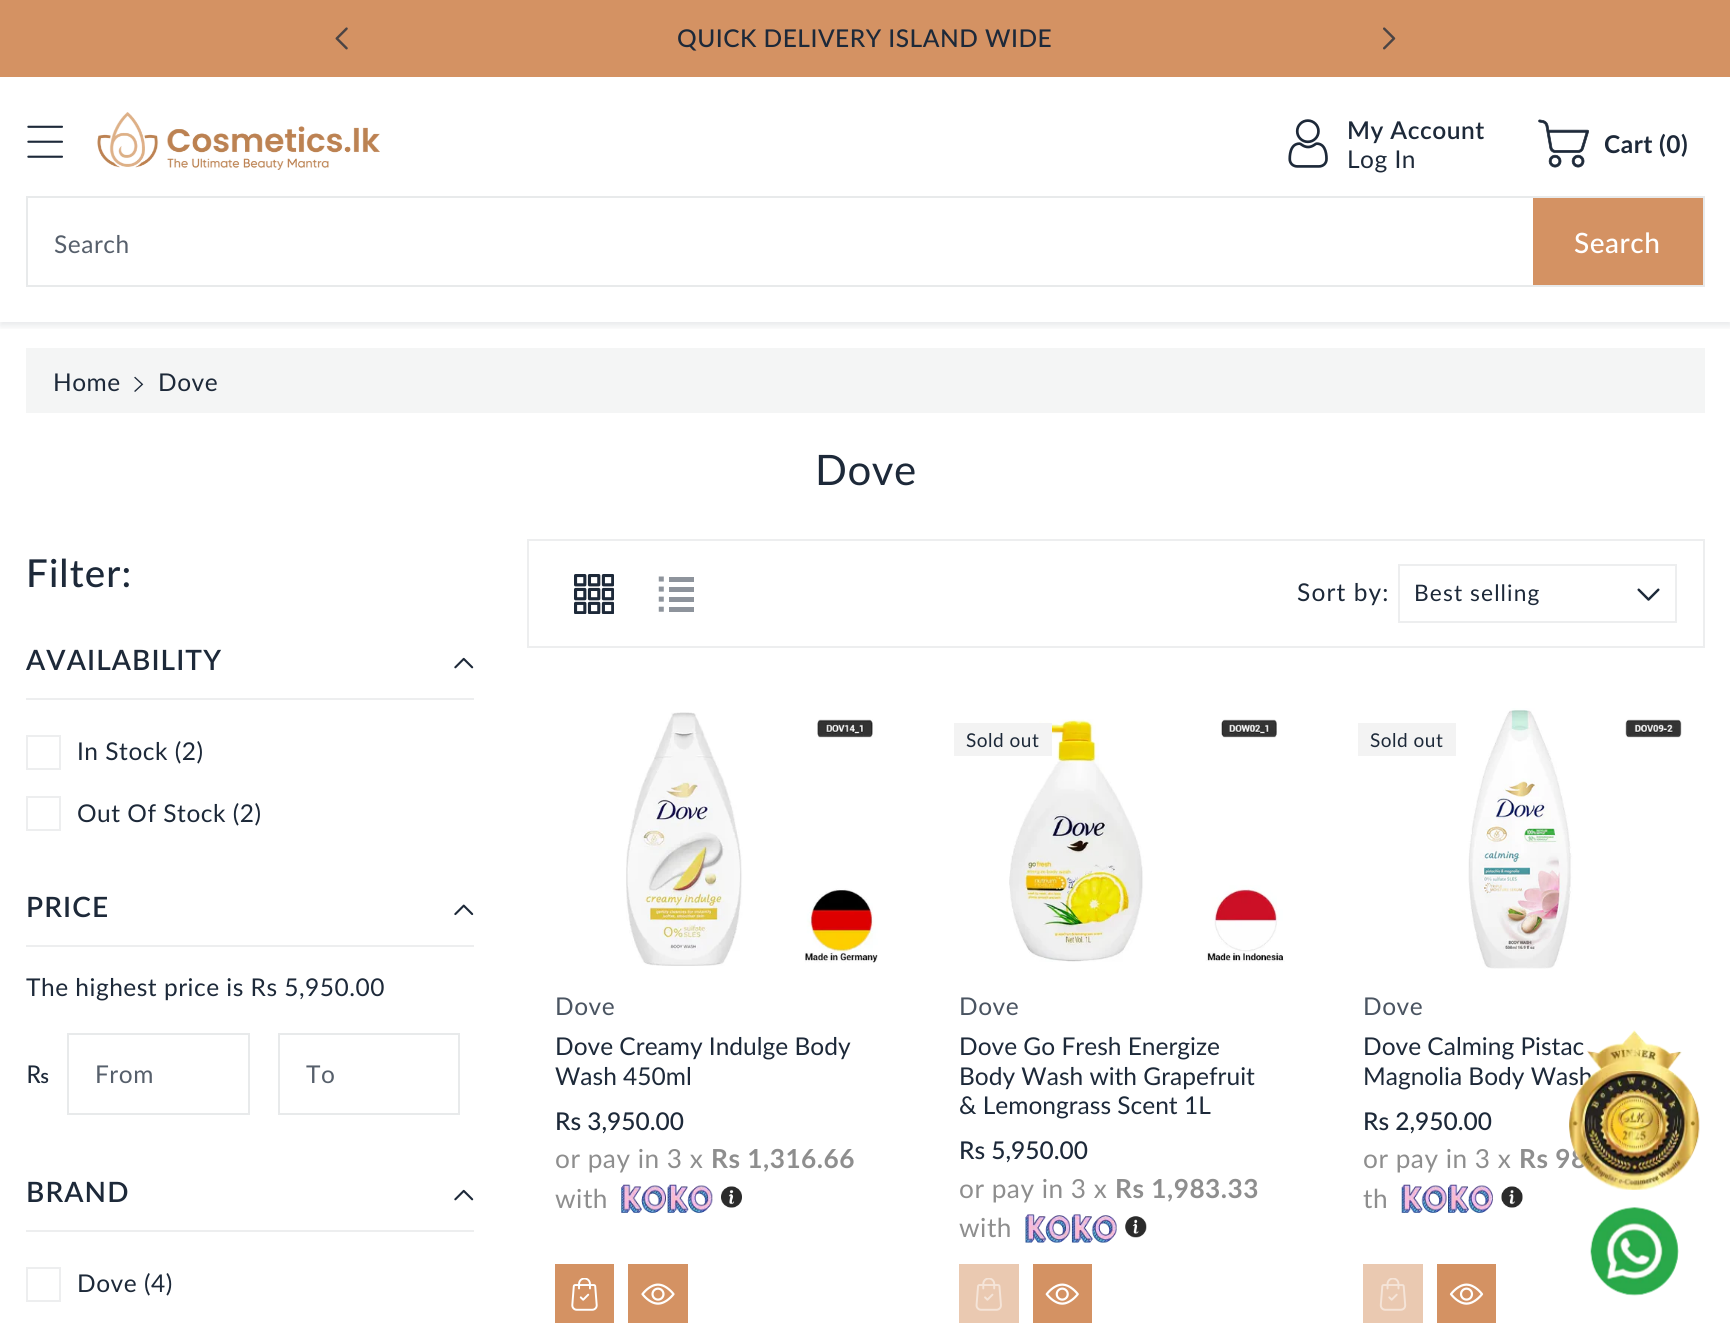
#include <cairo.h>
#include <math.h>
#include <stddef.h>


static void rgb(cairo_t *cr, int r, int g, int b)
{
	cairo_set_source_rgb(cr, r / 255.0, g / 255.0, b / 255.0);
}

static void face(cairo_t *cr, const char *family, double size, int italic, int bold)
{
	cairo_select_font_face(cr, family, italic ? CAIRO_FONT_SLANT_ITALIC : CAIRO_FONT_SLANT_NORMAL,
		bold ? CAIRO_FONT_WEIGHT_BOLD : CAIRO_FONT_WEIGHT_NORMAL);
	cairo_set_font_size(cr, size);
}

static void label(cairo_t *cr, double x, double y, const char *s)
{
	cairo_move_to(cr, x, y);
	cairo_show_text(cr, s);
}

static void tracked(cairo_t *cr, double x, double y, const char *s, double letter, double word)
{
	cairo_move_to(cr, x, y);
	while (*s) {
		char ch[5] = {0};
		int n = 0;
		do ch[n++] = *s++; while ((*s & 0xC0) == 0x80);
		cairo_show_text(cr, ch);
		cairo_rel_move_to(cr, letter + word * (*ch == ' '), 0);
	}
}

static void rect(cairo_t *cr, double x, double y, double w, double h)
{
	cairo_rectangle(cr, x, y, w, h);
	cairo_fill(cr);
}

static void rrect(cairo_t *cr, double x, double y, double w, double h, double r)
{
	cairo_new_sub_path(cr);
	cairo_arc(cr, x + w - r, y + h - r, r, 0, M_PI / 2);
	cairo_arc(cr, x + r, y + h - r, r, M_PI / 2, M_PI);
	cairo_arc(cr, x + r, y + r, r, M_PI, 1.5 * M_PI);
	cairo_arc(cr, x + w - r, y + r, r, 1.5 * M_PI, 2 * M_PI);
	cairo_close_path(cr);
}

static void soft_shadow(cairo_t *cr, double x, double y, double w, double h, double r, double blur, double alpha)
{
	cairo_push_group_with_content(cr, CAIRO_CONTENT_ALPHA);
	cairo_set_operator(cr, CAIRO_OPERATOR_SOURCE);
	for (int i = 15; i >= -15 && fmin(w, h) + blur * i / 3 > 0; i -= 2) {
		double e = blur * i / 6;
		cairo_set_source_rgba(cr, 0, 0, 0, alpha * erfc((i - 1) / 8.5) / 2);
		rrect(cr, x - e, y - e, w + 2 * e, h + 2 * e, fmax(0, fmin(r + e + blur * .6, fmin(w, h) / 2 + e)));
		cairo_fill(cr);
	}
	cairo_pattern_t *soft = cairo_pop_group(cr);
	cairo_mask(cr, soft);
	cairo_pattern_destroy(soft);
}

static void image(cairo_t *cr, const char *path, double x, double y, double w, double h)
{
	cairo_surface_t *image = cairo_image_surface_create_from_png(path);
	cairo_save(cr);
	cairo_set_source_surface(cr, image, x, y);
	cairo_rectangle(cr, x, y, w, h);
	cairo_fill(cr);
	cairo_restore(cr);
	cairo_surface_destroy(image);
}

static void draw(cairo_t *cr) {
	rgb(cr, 255, 255, 255);
	cairo_paint(cr);
	rgb(cr, 212, 146, 99);
	rect(cr, 0, 0, 1730, 77);
	image(cr, "image0.png", 335, 27, 13, 23);
	face(cr, "Lato Medium", 24.5, 0, 0);
	rgb(cr, 29, 41, 57);
	tracked(cr, 677, 47, "QUICK DELIVERY ISLAND WIDE", 0.5, 0);
	image(cr, "image1.png", 1383, 27, 13, 23);
	cairo_save(cr);
	cairo_rectangle(cr, 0, 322, 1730, 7);
	cairo_clip(cr);
	rgb(cr, 29, 41, 57);
	soft_shadow(cr, 0, 81, 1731, 245, 0, 3.5, 0.1);
	cairo_restore(cr);
	image(cr, "image2.png", 97, 112, 283, 58);
	image(cr, "image3.png", 27, 125, 36, 33);
	image(cr, "image4.png", 1288, 119, 40, 49);
	face(cr, "Lato SemiBold", 24.5, 0, 0);
	tracked(cr, 1347, 139, "My Account", 0.5, 0);
	face(cr, "Lato", 24.5, 0, 0);
	tracked(cr, 1347, 168, "Log In", 0.5, 0);
	image(cr, "image5.png", 1538, 119, 51, 49);
	face(cr, "Lato", 24.5, 0, 1);
	tracked(cr, 1604, 153, "Cart", 0.5, 0);
	tracked(cr, 1659, 153, "(0)", 0.5, 0);
	rgb(cr, 212, 146, 99);
	rect(cr, 1533, 198, 170, 87);
	cairo_rectangle(cr, 27, 197, 1677, 89);
	rgb(cr, 232, 234, 235);
	cairo_stroke(cr);
	face(cr, "Lato", 24.5, 0, 0);
	rgb(cr, 86, 95, 107);
	tracked(cr, 54, 253, "Search", 0.5, 0);
	face(cr, "Lato Medium", 28, 0, 0);
	rgb(cr, 255, 255, 255);
	tracked(cr, 1574, 253, "Search", 0.5, 0);
	rgb(cr, 244, 245, 245);
	rect(cr, 26, 348, 1679, 65);
	face(cr, "Lato", 24.5, 0, 0);
	rgb(cr, 29, 41, 57);
	tracked(cr, 53, 391, "Home", 0.5, 0);
	image(cr, "image6.png", 134, 376, 10, 16);
	tracked(cr, 158, 391, "Dove", 0.5, 0);
	face(cr, "Lato", 42, 0, 0);
	tracked(cr, 815, 485, "Dove", 0.5, 0);
	face(cr, "Lato Medium", 38.5, 0, 0);
	tracked(cr, 26, 587, "Filter:", 1.1, 0);
	rgb(cr, 237, 238, 239);
	rect(cr, 26, 698, 448, 2);
	face(cr, "Lato SemiBold", 28, 0, 0);
	rgb(cr, 29, 41, 57);
	tracked(cr, 26, 670, "AVAILABILITY", 1.1, 0);
	image(cr, "image7.png", 454, 657, 20, 12);
	cairo_rectangle(cr, 27, 736, 33, 33);
	rgb(cr, 237, 238, 239);
	cairo_stroke(cr);
	face(cr, "Lato", 24.5, 0, 0);
	rgb(cr, 29, 41, 57);
	tracked(cr, 77, 760, "In Stock (2)", 0.5, 0);
	cairo_rectangle(cr, 27, 797, 33, 33);
	rgb(cr, 237, 238, 239);
	cairo_stroke(cr);
	rgb(cr, 29, 41, 57);
	tracked(cr, 77, 822, "Out Of Stock (2)", 0.5, 0);
	rgb(cr, 237, 238, 239);
	rect(cr, 26, 945, 448, 2);
	face(cr, "Lato SemiBold", 28, 0, 0);
	rgb(cr, 29, 41, 57);
	tracked(cr, 26, 917, "PRICE", 1.1, 0);
	image(cr, "image8.png", 454, 904, 20, 12);
	face(cr, "Lato", 24.5, 0, 0);
	tracked(cr, 26, 996, "The highest price is Rs 5,950.00", 0.5, 0);
	tracked(cr, 26, 1083, "₨", 0.5, 0);
	cairo_rectangle(cr, 68, 1034, 181, 80);
	rgb(cr, 232, 234, 235);
	cairo_stroke(cr);
	rgb(cr, 86, 95, 107);
	tracked(cr, 95, 1083, "From", 0.5, 0);
	cairo_rectangle(cr, 279, 1034, 180, 80);
	rgb(cr, 232, 234, 235);
	cairo_stroke(cr);
	rgb(cr, 86, 95, 107);
	tracked(cr, 306, 1083, "To", 0.5, 0);
	rgb(cr, 237, 238, 239);
	rect(cr, 26, 1230, 448, 2);
	face(cr, "Lato SemiBold", 28, 0, 0);
	rgb(cr, 29, 41, 57);
	tracked(cr, 26, 1202, "BRAND", 1.1, 0);
	image(cr, "image7.png", 454, 1189, 20, 12);
	cairo_rectangle(cr, 27, 1268, 33, 33);
	rgb(cr, 237, 238, 239);
	cairo_stroke(cr);
	face(cr, "Lato", 24.5, 0, 0);
	rgb(cr, 29, 41, 57);
	tracked(cr, 77, 1292, "Dove (4)", 0.5, 0);
	image(cr, "image9.png", 626, 712, 252, 254);
	rgb(cr, 74, 84, 97);
	tracked(cr, 555, 1015, "Dove", 0.5, 0);
	rgb(cr, 29, 41, 57);
	label(cr, 555, 1055, "Dove Creamy Indulge Body");
	label(cr, 555, 1085, "Wash 450ml");
	face(cr, "Lato Medium", 24.5, 0, 0);
	label(cr, 555, 1130, "Rs 3,950.00");
	face(cr, "Lato", 26.25, 0, 0);
	rgb(cr, 142, 142, 142);
	tracked(cr, 555, 1168, "or pay in 3 x", 0.5, 0);
	face(cr, "Lato", 26.25, 0, 1);
	tracked(cr, 711, 1168, "Rs 1,316.66", 0.5, 0);
	face(cr, "Lato", 26.25, 0, 0);
	tracked(cr, 555, 1208, "with", 0.5, 0);
	image(cr, "image10.png", 621, 1184, 92, 29);
	image(cr, "image11.png", 721, 1186, 21, 22);
	rgb(cr, 212, 146, 99);
	rect(cr, 555, 1264, 59, 59);
	image(cr, "image12.png", 571, 1278, 27, 33);
	rect(cr, 628, 1264, 60, 59);
	image(cr, "image13.png", 641, 1283, 34, 22);
	image(cr, "image14.png", 1009, 719, 276, 243);
	rgb(cr, 243, 243, 243);
	rect(cr, 954, 723, 98, 33);
	face(cr, "Lato", 19, 0, 0);
	rgb(cr, 29, 41, 57);
	tracked(cr, 966, 747, "Sold out", 0.5, 0);
	face(cr, "Lato", 24.5, 0, 0);
	rgb(cr, 74, 84, 97);
	tracked(cr, 959, 1015, "Dove", 0.5, 0);
	rgb(cr, 29, 41, 57);
	label(cr, 959, 1055, "Dove Go Fresh Energize");
	label(cr, 959, 1085, "Body Wash with Grapefruit");
	label(cr, 959, 1114, "& Lemongrass Scent 1L");
	face(cr, "Lato Medium", 24.5, 0, 0);
	label(cr, 959, 1159, "Rs 5,950.00");
	face(cr, "Lato", 26.25, 0, 0);
	rgb(cr, 142, 142, 142);
	tracked(cr, 959, 1198, "or pay in 3 x", 0.5, 0);
	face(cr, "Lato", 26.25, 0, 1);
	tracked(cr, 1115, 1198, "Rs 1,983.33", 0.5, 0);
	face(cr, "Lato", 26.25, 0, 0);
	tracked(cr, 959, 1237, "with", 0.5, 0);
	image(cr, "image15.png", 1025, 1214, 92, 29);
	image(cr, "image16.png", 1125, 1216, 22, 22);
	rgb(cr, 234, 201, 177);
	rect(cr, 959, 1264, 60, 59);
	image(cr, "image17.png", 975, 1278, 27, 33);
	rgb(cr, 212, 146, 99);
	rect(cr, 1033, 1264, 59, 59);
	image(cr, "image18.png", 1045, 1283, 34, 22);
	rgb(cr, 243, 243, 243);
	rect(cr, 1358, 723, 98, 33);
	face(cr, "Lato", 19, 0, 0);
	rgb(cr, 29, 41, 57);
	tracked(cr, 1370, 747, "Sold out", 0.5, 0);
	image(cr, "image19.png", 1468, 708, 214, 261);
	face(cr, "Lato", 24.5, 0, 0);
	rgb(cr, 74, 84, 97);
	tracked(cr, 1363, 1015, "Dove", 0.5, 0);
	rgb(cr, 29, 41, 57);
	label(cr, 1363, 1055, "Dove Calming Pistac");
	label(cr, 1363, 1085, "Magnolia Body Wash");
	face(cr, "Lato Medium", 24.5, 0, 0);
	label(cr, 1363, 1130, "Rs 2,950.00");
	face(cr, "Lato", 26.25, 0, 0);
	rgb(cr, 142, 142, 142);
	tracked(cr, 1363, 1168, "or pay in 3 x", 0.5, 0);
	face(cr, "Lato", 26.25, 0, 1);
	tracked(cr, 1519, 1168, "Rs 98", 0.5, 0);
	face(cr, "Lato", 26.25, 0, 0);
	tracked(cr, 1363, 1208, "th", 0.5, 0);
	image(cr, "image20.png", 1401, 1184, 92, 29);
	image(cr, "image21.png", 1501, 1186, 22, 22);
	rgb(cr, 234, 201, 177);
	rect(cr, 1363, 1264, 60, 59);
	image(cr, "image22.png", 1379, 1278, 28, 33);
	rgb(cr, 212, 146, 99);
	rect(cr, 1437, 1264, 59, 59);
	image(cr, "image23.png", 1449, 1283, 35, 22);
	cairo_rectangle(cr, 528, 540, 1176, 107);
	rgb(cr, 237, 238, 239);
	cairo_stroke(cr);
	image(cr, "image24.png", 574, 574, 40, 40);
	image(cr, "image25.png", 658, 576, 36, 36);
	face(cr, "Lato", 24.5, 0, 0);
	rgb(cr, 29, 41, 57);
	tracked(cr, 1297, 601, "Sort by:", 1.1, 0);
	cairo_rectangle(cr, 1399, 565, 277, 57);
	rgb(cr, 237, 238, 239);
	cairo_stroke(cr);
	face(cr, "Lato", 22.75, 0, 0);
	rgb(cr, 29, 41, 57);
	tracked(cr, 1414, 601, "Best selling", 1.1, 0);
	image(cr, "image26.png", 1637, 588, 23, 13);
	image(cr, "image27.png", 1569, 1030, 131, 160);
	image(cr, "image28.png", 1590, 1207, 89, 89);
}

int main(void) {
	cairo_surface_t *surface = cairo_image_surface_create(CAIRO_FORMAT_RGB24, 1730, 1326);
	cairo_t *cr = cairo_create(surface);
	cairo_font_options_t *options = cairo_font_options_create();
	cairo_font_options_set_hint_metrics(options, CAIRO_HINT_METRICS_OFF);
	cairo_font_options_set_hint_style(options, CAIRO_HINT_STYLE_NONE);
	cairo_set_font_options(cr, options);
	cairo_set_miter_limit(cr, 4);
	draw(cr);
	cairo_surface_write_to_png(surface, "render.png");
	cairo_font_options_destroy(options);
	cairo_destroy(cr);
	cairo_surface_destroy(surface);
	return 0;
}
